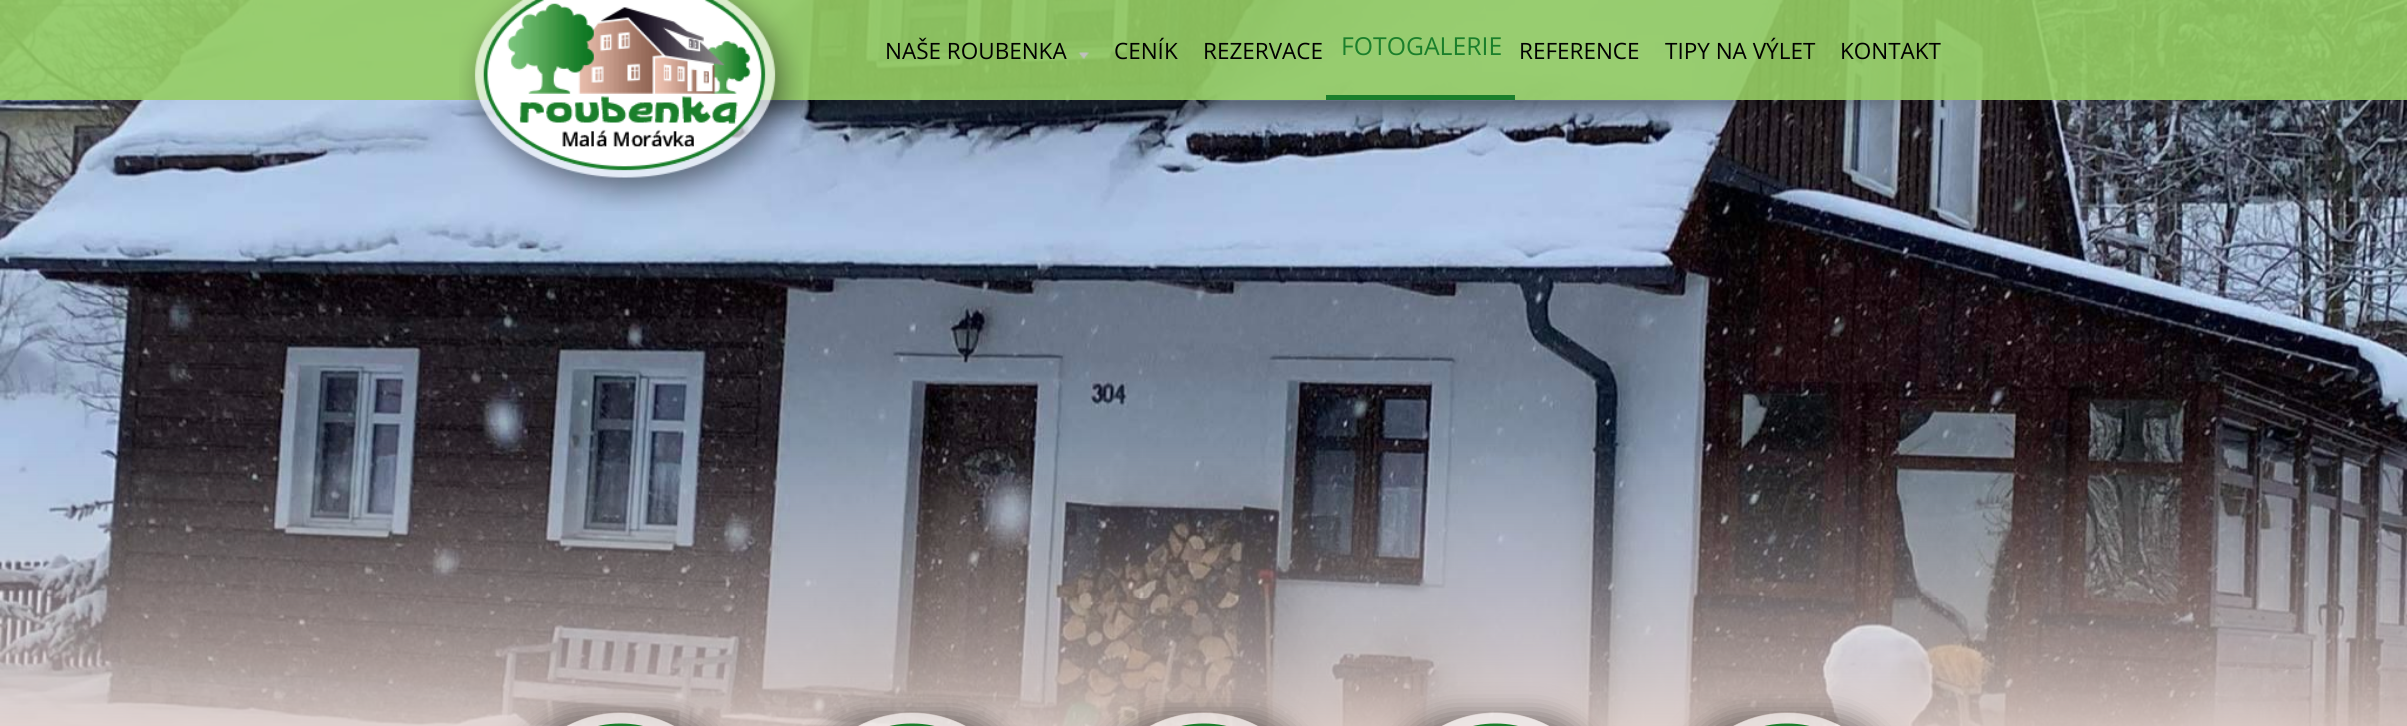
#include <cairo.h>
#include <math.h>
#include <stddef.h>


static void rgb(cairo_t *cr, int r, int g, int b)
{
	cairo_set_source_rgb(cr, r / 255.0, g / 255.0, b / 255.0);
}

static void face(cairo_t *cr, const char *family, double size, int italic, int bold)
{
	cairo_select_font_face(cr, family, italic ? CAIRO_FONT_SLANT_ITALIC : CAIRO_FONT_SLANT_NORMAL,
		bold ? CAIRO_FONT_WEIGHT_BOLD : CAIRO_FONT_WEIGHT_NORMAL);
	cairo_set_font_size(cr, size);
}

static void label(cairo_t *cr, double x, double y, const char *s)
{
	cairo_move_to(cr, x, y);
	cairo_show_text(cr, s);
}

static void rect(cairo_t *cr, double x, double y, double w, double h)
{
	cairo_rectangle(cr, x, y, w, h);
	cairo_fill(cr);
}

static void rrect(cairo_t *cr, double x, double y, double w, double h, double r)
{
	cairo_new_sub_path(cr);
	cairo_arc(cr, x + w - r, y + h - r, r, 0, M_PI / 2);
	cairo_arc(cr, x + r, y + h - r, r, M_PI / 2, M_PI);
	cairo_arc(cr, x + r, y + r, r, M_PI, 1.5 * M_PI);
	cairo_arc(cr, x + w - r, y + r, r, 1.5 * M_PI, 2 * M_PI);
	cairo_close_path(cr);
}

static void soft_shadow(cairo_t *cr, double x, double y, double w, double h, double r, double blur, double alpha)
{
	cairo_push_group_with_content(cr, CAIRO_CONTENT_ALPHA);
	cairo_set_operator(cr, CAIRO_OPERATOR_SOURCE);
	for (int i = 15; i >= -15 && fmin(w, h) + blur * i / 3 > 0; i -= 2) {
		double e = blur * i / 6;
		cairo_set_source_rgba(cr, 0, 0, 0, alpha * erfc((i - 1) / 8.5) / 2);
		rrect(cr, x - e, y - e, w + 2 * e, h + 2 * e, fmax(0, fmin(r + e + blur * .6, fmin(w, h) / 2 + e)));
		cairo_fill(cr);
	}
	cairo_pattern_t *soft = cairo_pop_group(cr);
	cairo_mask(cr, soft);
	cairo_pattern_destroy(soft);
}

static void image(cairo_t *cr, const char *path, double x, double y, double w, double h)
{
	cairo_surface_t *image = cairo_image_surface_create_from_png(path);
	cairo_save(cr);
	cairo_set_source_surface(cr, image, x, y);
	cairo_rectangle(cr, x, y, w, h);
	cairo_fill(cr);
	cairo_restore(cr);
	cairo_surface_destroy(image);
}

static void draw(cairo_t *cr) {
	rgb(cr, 255, 255, 255);
	cairo_paint(cr);
	image(cr, "image0.png", 0, 0, 2407, 726);
	image(cr, "image1.png", 484, 99, 1417, 35);
	cairo_set_source_rgba(cr, 0.584, 0.804, 0.388, 0.9);
	rect(cr, 0, 0, 2407, 100);
	image(cr, "image2.png", 459, 0, 344, 211);
	face(cr, "Open Sans", 22.5, 0, 0);
	rgb(cr, 0, 0, 0);
	label(cr, 885, 59, "NAŠE ROUBENKA");
	image(cr, "image3.png", 1078, 52, 11, 7);
	label(cr, 1114, 59, "CENÍK");
	label(cr, 1203, 59, "REZERVACE");
	rgb(cr, 26, 127, 43);
	rect(cr, 1326, 95, 189, 5);
	face(cr, "Open Sans", 24.75, 0, 0);
	label(cr, 1341, 55, "FOTOGALERIE");
	face(cr, "Open Sans", 22.5, 0, 0);
	rgb(cr, 0, 0, 0);
	label(cr, 1519, 59, "REFERENCE");
	label(cr, 1665, 59, "TIPY NA VÝLET");
	label(cr, 1840, 59, "KONTAKT");
	cairo_save(cr);
	cairo_set_fill_rule(cr, CAIRO_FILL_RULE_EVEN_ODD);
	cairo_new_path(cr);
	cairo_move_to(cr, 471, 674);
	cairo_line_to(cr, 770, 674);
	cairo_line_to(cr, 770, 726);
	cairo_line_to(cr, 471, 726);
	cairo_close_path(cr);
	cairo_move_to(cr, 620.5, 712.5);
	cairo_curve_to(cr, 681.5, 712.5, 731, 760, 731, 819);
	cairo_curve_to(cr, 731, 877.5, 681.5, 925, 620.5, 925);
	cairo_curve_to(cr, 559.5, 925, 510, 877.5, 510, 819);
	cairo_curve_to(cr, 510, 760, 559.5, 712.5, 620.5, 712.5);
	cairo_close_path(cr);
	cairo_clip(cr);
	rgb(cr, 0, 0, 0);
	soft_shadow(cr, 510, 713, 221, 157, 106, 12.5, 0.4);
	cairo_restore(cr);
	cairo_set_source_rgba(cr, 1, 1, 1, 0.5);
	cairo_new_path(cr);
	cairo_move_to(cr, 620.5, 713);
	cairo_curve_to(cr, 681.5, 713, 731, 760.5, 731, 819);
	cairo_curve_to(cr, 731, 877.5, 681.5, 925, 620.5, 925);
	cairo_curve_to(cr, 559.5, 925, 510, 877.5, 510, 819);
	cairo_curve_to(cr, 510, 760.5, 559.5, 713, 620.5, 713);
	cairo_close_path(cr);
	cairo_fill(cr);
	cairo_new_path(cr);
	cairo_move_to(cr, 620.5, 726);
	cairo_curve_to(cr, 674, 726, 717.5, 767.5, 717.5, 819);
	cairo_curve_to(cr, 717.5, 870, 674, 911, 620.5, 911);
	cairo_curve_to(cr, 567, 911, 524, 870, 524, 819);
	cairo_curve_to(cr, 524, 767.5, 567, 726, 620.5, 726);
	cairo_close_path(cr);
	rgb(cr, 26, 127, 43);
	cairo_set_line_width(cr, 5);
	cairo_stroke(cr);
	cairo_save(cr);
	cairo_set_fill_rule(cr, CAIRO_FILL_RULE_EVEN_ODD);
	cairo_new_path(cr);
	cairo_move_to(cr, 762, 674);
	cairo_line_to(cr, 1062, 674);
	cairo_line_to(cr, 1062, 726);
	cairo_line_to(cr, 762, 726);
	cairo_close_path(cr);
	cairo_move_to(cr, 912, 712.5);
	cairo_curve_to(cr, 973, 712.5, 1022.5, 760, 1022.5, 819);
	cairo_curve_to(cr, 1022.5, 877.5, 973, 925, 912, 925);
	cairo_curve_to(cr, 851, 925, 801, 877.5, 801, 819);
	cairo_curve_to(cr, 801, 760, 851, 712.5, 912, 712.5);
	cairo_close_path(cr);
	cairo_clip(cr);
	rgb(cr, 0, 0, 0);
	soft_shadow(cr, 801, 713, 222, 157, 106, 12.5, 0.4);
	cairo_restore(cr);
	cairo_set_source_rgba(cr, 1, 1, 1, 0.5);
	cairo_new_path(cr);
	cairo_move_to(cr, 912, 713);
	cairo_curve_to(cr, 973, 713, 1022.5, 760.5, 1022.5, 819);
	cairo_curve_to(cr, 1022.5, 877.5, 973, 925, 912, 925);
	cairo_curve_to(cr, 851, 925, 801.5, 877.5, 801.5, 819);
	cairo_curve_to(cr, 801.5, 760.5, 851, 713, 912, 713);
	cairo_close_path(cr);
	cairo_fill(cr);
	cairo_new_path(cr);
	cairo_move_to(cr, 912, 726);
	cairo_curve_to(cr, 965.5, 726, 1009, 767.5, 1009, 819);
	cairo_curve_to(cr, 1009, 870, 965.5, 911, 912, 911);
	cairo_curve_to(cr, 858.5, 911, 815, 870, 815, 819);
	cairo_curve_to(cr, 815, 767.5, 858.5, 726, 912, 726);
	cairo_close_path(cr);
	rgb(cr, 26, 127, 43);
	cairo_stroke(cr);
	cairo_save(cr);
	cairo_set_fill_rule(cr, CAIRO_FILL_RULE_EVEN_ODD);
	cairo_new_path(cr);
	cairo_move_to(cr, 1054, 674);
	cairo_line_to(cr, 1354, 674);
	cairo_line_to(cr, 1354, 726);
	cairo_line_to(cr, 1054, 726);
	cairo_close_path(cr);
	cairo_move_to(cr, 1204, 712.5);
	cairo_curve_to(cr, 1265, 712.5, 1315, 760, 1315, 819);
	cairo_curve_to(cr, 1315, 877.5, 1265, 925, 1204, 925);
	cairo_curve_to(cr, 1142.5, 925, 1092.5, 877.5, 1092.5, 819);
	cairo_curve_to(cr, 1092.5, 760, 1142.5, 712.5, 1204, 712.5);
	cairo_close_path(cr);
	cairo_clip(cr);
	rgb(cr, 0, 0, 0);
	soft_shadow(cr, 1093, 713, 222, 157, 106, 12.5, 0.4);
	cairo_restore(cr);
	cairo_set_source_rgba(cr, 1, 1, 1, 0.5);
	cairo_new_path(cr);
	cairo_move_to(cr, 1204, 713);
	cairo_curve_to(cr, 1265.5, 713, 1315, 760.5, 1315, 819);
	cairo_curve_to(cr, 1315, 877.5, 1265.5, 925, 1204, 925);
	cairo_curve_to(cr, 1142.5, 925, 1093, 877.5, 1093, 819);
	cairo_curve_to(cr, 1093, 760.5, 1142.5, 713, 1204, 713);
	cairo_close_path(cr);
	cairo_fill(cr);
	cairo_new_path(cr);
	cairo_move_to(cr, 1204, 726);
	cairo_curve_to(cr, 1257.5, 726, 1301, 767.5, 1301, 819);
	cairo_curve_to(cr, 1301, 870, 1257.5, 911, 1204, 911);
	cairo_curve_to(cr, 1150, 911, 1106, 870, 1106, 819);
	cairo_curve_to(cr, 1106, 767.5, 1150, 726, 1204, 726);
	cairo_close_path(cr);
	rgb(cr, 26, 127, 43);
	cairo_stroke(cr);
	cairo_save(cr);
	cairo_set_fill_rule(cr, CAIRO_FILL_RULE_EVEN_ODD);
	cairo_new_path(cr);
	cairo_move_to(cr, 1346, 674);
	cairo_line_to(cr, 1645, 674);
	cairo_line_to(cr, 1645, 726);
	cairo_line_to(cr, 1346, 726);
	cairo_close_path(cr);
	cairo_move_to(cr, 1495.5, 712.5);
	cairo_curve_to(cr, 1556.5, 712.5, 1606, 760, 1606, 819);
	cairo_curve_to(cr, 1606, 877.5, 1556.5, 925, 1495.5, 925);
	cairo_curve_to(cr, 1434.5, 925, 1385, 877.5, 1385, 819);
	cairo_curve_to(cr, 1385, 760, 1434.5, 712.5, 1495.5, 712.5);
	cairo_close_path(cr);
	cairo_clip(cr);
	rgb(cr, 0, 0, 0);
	soft_shadow(cr, 1385, 713, 221, 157, 106, 12.5, 0.4);
	cairo_restore(cr);
	cairo_set_source_rgba(cr, 1, 1, 1, 0.5);
	cairo_new_path(cr);
	cairo_move_to(cr, 1495.5, 713);
	cairo_curve_to(cr, 1556.5, 713, 1606, 760.5, 1606, 819);
	cairo_curve_to(cr, 1606, 877.5, 1556.5, 925, 1495.5, 925);
	cairo_curve_to(cr, 1434.5, 925, 1385, 877.5, 1385, 819);
	cairo_curve_to(cr, 1385, 760.5, 1434.5, 713, 1495.5, 713);
	cairo_close_path(cr);
	cairo_fill(cr);
	cairo_new_path(cr);
	cairo_move_to(cr, 1495.5, 726);
	cairo_curve_to(cr, 1549, 726, 1592.5, 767.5, 1592.5, 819);
	cairo_curve_to(cr, 1592.5, 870, 1549, 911, 1495.5, 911);
	cairo_curve_to(cr, 1442, 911, 1399, 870, 1399, 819);
	cairo_curve_to(cr, 1399, 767.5, 1442, 726, 1495.5, 726);
	cairo_close_path(cr);
	rgb(cr, 26, 127, 43);
	cairo_stroke(cr);
	cairo_save(cr);
	cairo_set_fill_rule(cr, CAIRO_FILL_RULE_EVEN_ODD);
	cairo_new_path(cr);
	cairo_move_to(cr, 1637, 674);
	cairo_line_to(cr, 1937, 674);
	cairo_line_to(cr, 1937, 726);
	cairo_line_to(cr, 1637, 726);
	cairo_close_path(cr);
	cairo_move_to(cr, 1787, 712.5);
	cairo_curve_to(cr, 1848, 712.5, 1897.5, 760, 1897.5, 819);
	cairo_curve_to(cr, 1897.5, 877.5, 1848, 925, 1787, 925);
	cairo_curve_to(cr, 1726, 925, 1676, 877.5, 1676, 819);
	cairo_curve_to(cr, 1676, 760, 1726, 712.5, 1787, 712.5);
	cairo_close_path(cr);
	cairo_clip(cr);
	rgb(cr, 0, 0, 0);
	soft_shadow(cr, 1676, 713, 222, 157, 106, 12.5, 0.4);
	cairo_restore(cr);
	cairo_set_source_rgba(cr, 1, 1, 1, 0.5);
	cairo_new_path(cr);
	cairo_move_to(cr, 1787, 713);
	cairo_curve_to(cr, 1848, 713, 1897.5, 760.5, 1897.5, 819);
	cairo_curve_to(cr, 1897.5, 877.5, 1848, 925, 1787, 925);
	cairo_curve_to(cr, 1726, 925, 1676.5, 877.5, 1676.5, 819);
	cairo_curve_to(cr, 1676.5, 760.5, 1726, 713, 1787, 713);
	cairo_close_path(cr);
	cairo_fill(cr);
	cairo_new_path(cr);
	cairo_move_to(cr, 1787, 726);
	cairo_curve_to(cr, 1840.5, 726, 1884, 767.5, 1884, 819);
	cairo_curve_to(cr, 1884, 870, 1840.5, 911, 1787, 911);
	cairo_curve_to(cr, 1733.5, 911, 1690, 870, 1690, 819);
	cairo_curve_to(cr, 1690, 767.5, 1733.5, 726, 1787, 726);
	cairo_close_path(cr);
	rgb(cr, 26, 127, 43);
	cairo_stroke(cr);
}

int main(void) {
	cairo_surface_t *surface = cairo_image_surface_create(CAIRO_FORMAT_RGB24, 2407, 726);
	cairo_t *cr = cairo_create(surface);
	cairo_font_options_t *options = cairo_font_options_create();
	cairo_font_options_set_hint_metrics(options, CAIRO_HINT_METRICS_OFF);
	cairo_font_options_set_hint_style(options, CAIRO_HINT_STYLE_NONE);
	cairo_set_font_options(cr, options);
	cairo_set_miter_limit(cr, 4);
	draw(cr);
	cairo_surface_write_to_png(surface, "render.png");
	cairo_font_options_destroy(options);
	cairo_destroy(cr);
	cairo_surface_destroy(surface);
	return 0;
}
